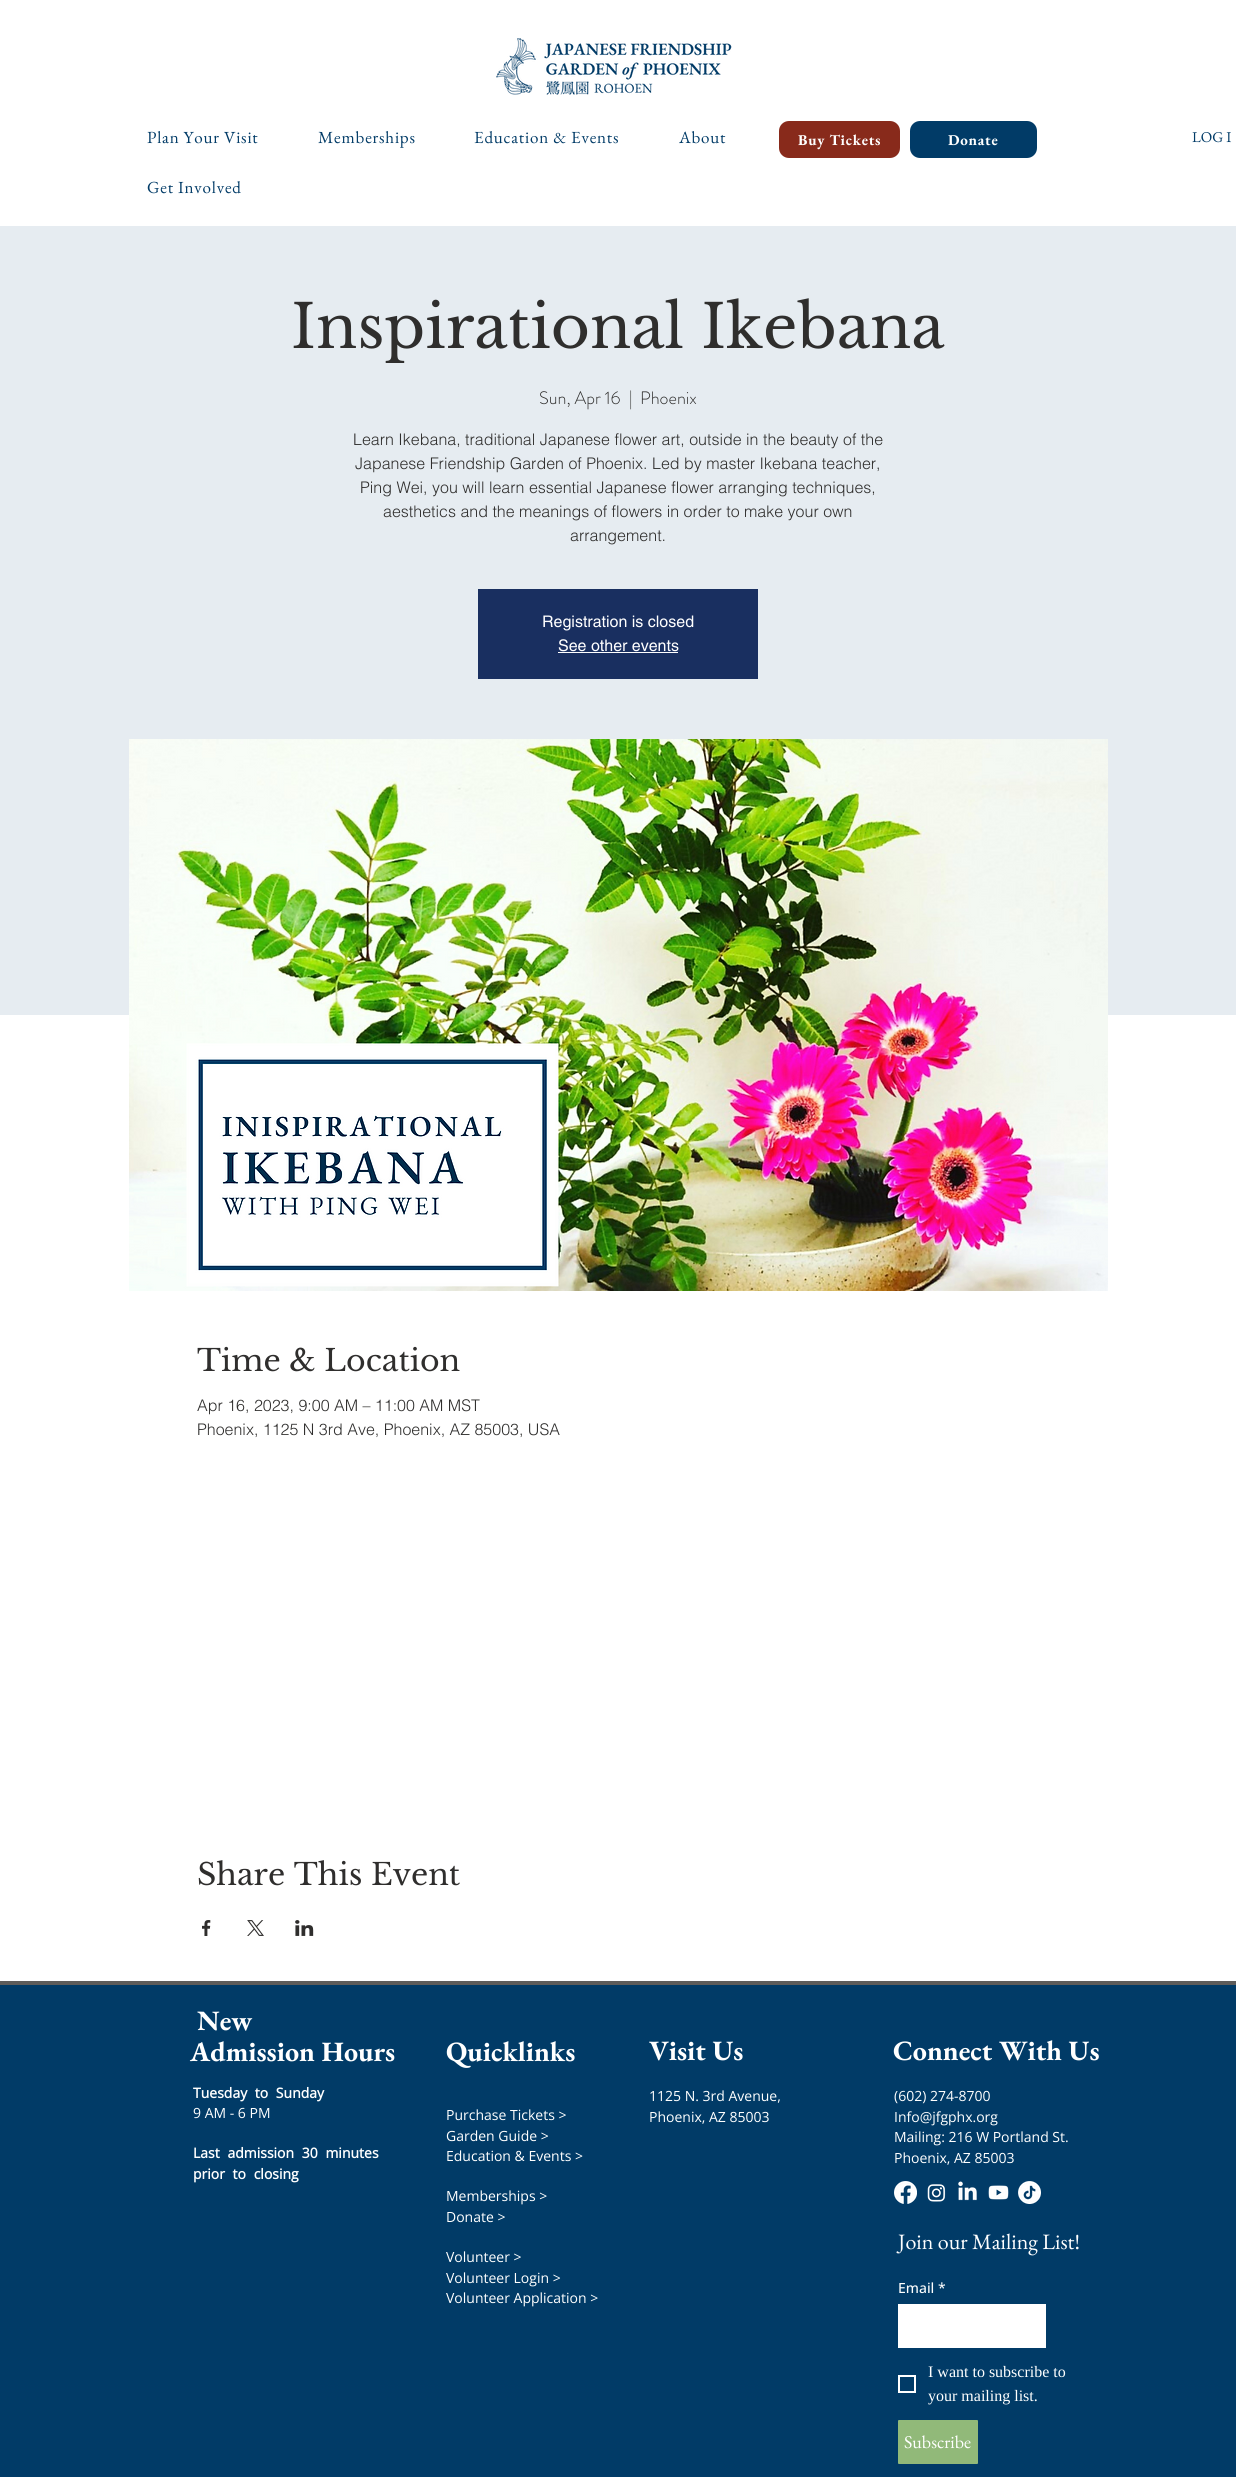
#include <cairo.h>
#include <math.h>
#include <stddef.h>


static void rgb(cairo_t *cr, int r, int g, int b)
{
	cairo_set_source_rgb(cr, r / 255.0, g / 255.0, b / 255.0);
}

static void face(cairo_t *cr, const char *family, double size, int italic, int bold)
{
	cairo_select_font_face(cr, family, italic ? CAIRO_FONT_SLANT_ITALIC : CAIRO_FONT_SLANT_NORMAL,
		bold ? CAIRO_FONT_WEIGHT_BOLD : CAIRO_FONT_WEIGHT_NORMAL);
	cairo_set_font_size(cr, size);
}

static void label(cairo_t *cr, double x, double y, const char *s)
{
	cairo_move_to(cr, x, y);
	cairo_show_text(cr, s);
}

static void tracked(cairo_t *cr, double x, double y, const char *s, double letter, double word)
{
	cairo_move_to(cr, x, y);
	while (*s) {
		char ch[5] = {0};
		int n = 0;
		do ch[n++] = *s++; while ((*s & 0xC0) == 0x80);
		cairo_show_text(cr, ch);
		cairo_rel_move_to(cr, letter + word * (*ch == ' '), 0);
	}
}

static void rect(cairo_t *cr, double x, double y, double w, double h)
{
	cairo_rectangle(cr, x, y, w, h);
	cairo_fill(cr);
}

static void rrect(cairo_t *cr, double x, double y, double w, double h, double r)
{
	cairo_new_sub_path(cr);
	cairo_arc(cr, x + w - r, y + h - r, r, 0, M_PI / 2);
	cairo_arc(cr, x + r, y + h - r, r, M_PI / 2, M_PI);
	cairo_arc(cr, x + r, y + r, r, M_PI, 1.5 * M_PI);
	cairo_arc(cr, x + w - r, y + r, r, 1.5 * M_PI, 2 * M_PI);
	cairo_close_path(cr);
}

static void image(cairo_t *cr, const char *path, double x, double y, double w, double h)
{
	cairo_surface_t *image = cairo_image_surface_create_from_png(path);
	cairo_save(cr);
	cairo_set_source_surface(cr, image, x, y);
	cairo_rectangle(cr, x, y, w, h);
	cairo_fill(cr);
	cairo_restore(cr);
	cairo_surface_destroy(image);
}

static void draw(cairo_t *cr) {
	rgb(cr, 255, 255, 255);
	cairo_paint(cr);
	image(cr, "image0.png", 496, 38, 236, 57);
	face(cr, "EB Garamond", 17, 0, 0);
	rgb(cr, 1, 59, 103);
	tracked(cr, 147, 143, "Plan Your Visit", 0.8, 0);
	tracked(cr, 318, 143, "Memberships", 0.8, 0);
	tracked(cr, 474, 143, "Education & Events", 0.8, 0);
	tracked(cr, 679, 143, "About", 0.8, 0);
	tracked(cr, 147, 193, "Get Involved", 0.8, 0);
	rgb(cr, 136, 42, 27);
	rrect(cr, 779, 121, 121, 37, 10);
	cairo_fill(cr);
	face(cr, "EB Garamond", 15, 0, 1);
	rgb(cr, 255, 255, 255);
	tracked(cr, 798, 145, "Buy Tickets", 0.75, 0);
	rgb(cr, 1, 59, 103);
	rrect(cr, 910, 121, 127, 37, 10);
	cairo_fill(cr);
	rgb(cr, 255, 255, 255);
	tracked(cr, 948, 145, "Donate", 0.75, 0);
	face(cr, "EB Garamond", 15, 0, 0);
	rgb(cr, 1, 59, 103);
	label(cr, 1192, 142, "LOG I");
	rgb(cr, 230, 236, 241);
	rect(cr, 0, 226, 1236, 789);
	face(cr, "Libre Baskerville", 60, 0, 0);
	rgb(cr, 47, 46, 45);
	label(cr, 291, 348, "Inspirational Ikebana");
	face(cr, "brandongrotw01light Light", 18, 0, 0);
	label(cr, 539, 404, "Sun, Apr 16");
	label(cr, 629, 404, "|");
	label(cr, 640, 404, "Phoenix");
	face(cr, "helvetica Light", 16, 0, 0);
	label(cr, 353, 445, "Learn Ikebana, traditional Japanese flower art, outside in the beauty of the");
	label(cr, 355, 469, "Japanese Friendship Garden of Phoenix. Led by master Ikebana teacher,");
	label(cr, 360, 493, "Ping Wei, you will learn essential Japanese flower arranging techniques,");
	label(cr, 383, 517, "aesthetics and the meanings of flowers in order to make your own");
	label(cr, 570, 541, "arrangement.");
	rgb(cr, 25, 47, 96);
	rect(cr, 478, 589, 280, 90);
	face(cr, "helvetica", 16, 0, 0);
	rgb(cr, 255, 255, 255);
	label(cr, 542, 627, "Registration is closed");
	label(cr, 558, 651, "See other events");
	rect(cr, 558, 652, 120, 1);
	image(cr, "image1.png", 129, 739, 979, 552);
	face(cr, "Libre Baskerville", 30, 0, 0);
	rgb(cr, 47, 46, 45);
	label(cr, 197, 1371, "Time & Location");
	face(cr, "helvetica Light", 16, 0, 0);
	label(cr, 197, 1411, "Apr 16, 2023, 9:00 AM – 11:00 AM MST");
	label(cr, 197, 1435, "Phoenix, 1125 N 3rd Ave, Phoenix, AZ 85003, USA");
	face(cr, "Libre Baskerville", 30, 0, 0);
	label(cr, 197, 1885, "Share This Event");
	image(cr, "image2.png", 202, 1920, 9, 16);
	image(cr, "image3.png", 247, 1920, 17, 16);
	image(cr, "image4.png", 295, 1920, 19, 16);
	rgb(cr, 94, 92, 90);
	rect(cr, 0, 1981, 1236, 4);
	rgb(cr, 1, 59, 103);
	rect(cr, 0, 1985, 1236, 492);
	face(cr, "EB Garamond", 28, 0, 1);
	rgb(cr, 255, 255, 255);
	label(cr, 197, 2030, "New");
	label(cr, 190, 2061, "Admission Hours");
	face(cr, "Open Sans", 14, 0, 1);
	tracked(cr, 193, 2098, "Tuesday to Sunday", 0, 4);
	face(cr, "Open Sans", 14, 0, 0);
	label(cr, 193, 2118, "9 AM - 6 PM");
	face(cr, "Open Sans", 14, 0, 1);
	tracked(cr, 193, 2158, "Last admission 30 minutes", 0, 4);
	tracked(cr, 193, 2179, "prior to closing", 0, 4);
	face(cr, "EB Garamond", 28, 0, 1);
	label(cr, 446, 2061, "Quicklinks");
	face(cr, "Open Sans", 14, 0, 0);
	label(cr, 446, 2120, "Purchase Tickets >");
	label(cr, 446, 2141, "Garden Guide >");
	label(cr, 446, 2161, "Education & Events >");
	label(cr, 446, 2201, "Memberships >");
	label(cr, 446, 2222, "Donate >");
	label(cr, 446, 2262, "Volunteer >");
	label(cr, 446, 2283, "Volunteer Login >");
	label(cr, 446, 2303, "Volunteer Application >");
	face(cr, "EB Garamond", 28, 0, 1);
	label(cr, 649, 2060, "Visit Us");
	face(cr, "Open Sans", 14, 0, 0);
	label(cr, 649, 2101, "1125 N. 3rd Avenue,");
	label(cr, 649, 2122, "Phoenix, AZ 85003");
	face(cr, "EB Garamond", 28, 0, 1);
	label(cr, 893, 2060, "Connect With Us");
	face(cr, "Open Sans", 14, 0, 0);
	label(cr, 894, 2101, "(602) 274-8700");
	label(cr, 894, 2122, "Info@jfgphx.org");
	label(cr, 894, 2142, "Mailing: 216 W Portland St.");
	label(cr, 894, 2163, "Phoenix, AZ 85003");
	image(cr, "image5.png", 894, 2181, 23, 23);
	image(cr, "image6.png", 927, 2184, 19, 18);
	image(cr, "image7.png", 958, 2181, 19, 20);
	image(cr, "image8.png", 988, 2185, 21, 15);
	image(cr, "image9.png", 1018, 2181, 23, 23);
	face(cr, "EB Garamond", 22, 0, 0);
	label(cr, 898, 2249, "Join our Mailing List!");
	face(cr, "Open Sans Medium", 14, 0, 0);
	label(cr, 898, 2293, "Email");
	label(cr, 938, 2293, "*");
	cairo_rectangle(cr, 899, 2305, 146, 42);
	cairo_fill_preserve(cr);
	cairo_stroke(cr);
	cairo_rectangle(cr, 899, 2376, 16, 16);
	cairo_stroke(cr);
	face(cr, "Liberation Serif", 16, 0, 0);
	label(cr, 928, 2377, "I want to subscribe to");
	label(cr, 928, 2401, "your mailing list.");
	rgb(cr, 145, 185, 121);
	rrect(cr, 898, 2420, 80, 44, 1);
	cairo_fill(cr);
	face(cr, "EB Garamond", 18, 0, 0);
	rgb(cr, 255, 255, 255);
	label(cr, 904, 2448, "Subscribe");
}

int main(void) {
	cairo_surface_t *surface = cairo_image_surface_create(CAIRO_FORMAT_RGB24, 1236, 2477);
	cairo_t *cr = cairo_create(surface);
	cairo_font_options_t *options = cairo_font_options_create();
	cairo_font_options_set_hint_metrics(options, CAIRO_HINT_METRICS_OFF);
	cairo_font_options_set_hint_style(options, CAIRO_HINT_STYLE_NONE);
	cairo_set_font_options(cr, options);
	cairo_set_miter_limit(cr, 4);
	draw(cr);
	cairo_surface_write_to_png(surface, "render.png");
	cairo_font_options_destroy(options);
	cairo_destroy(cr);
	cairo_surface_destroy(surface);
	return 0;
}
